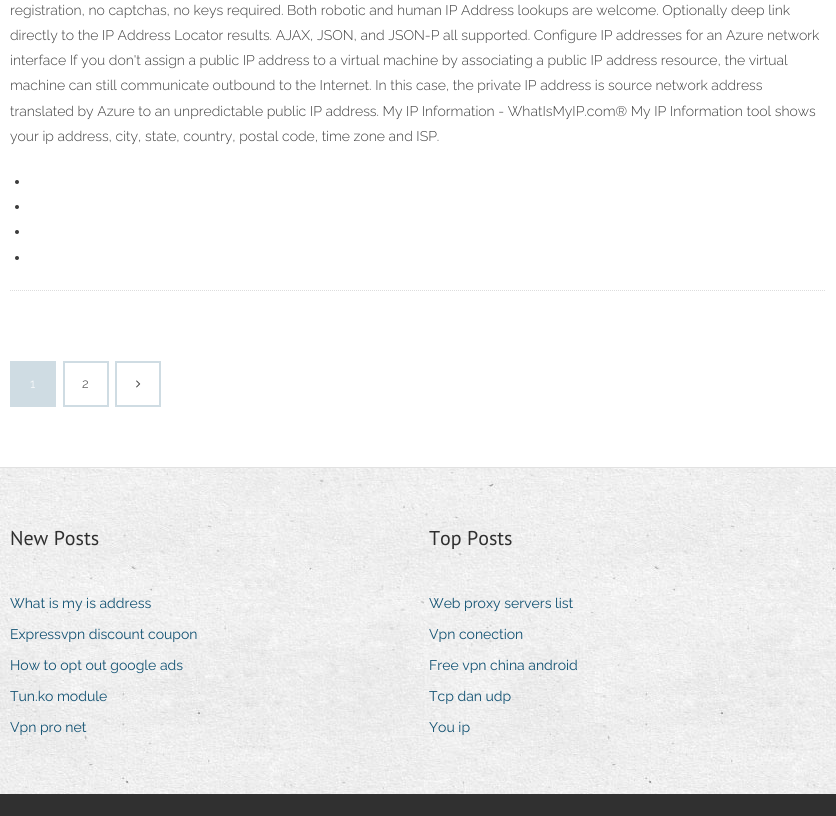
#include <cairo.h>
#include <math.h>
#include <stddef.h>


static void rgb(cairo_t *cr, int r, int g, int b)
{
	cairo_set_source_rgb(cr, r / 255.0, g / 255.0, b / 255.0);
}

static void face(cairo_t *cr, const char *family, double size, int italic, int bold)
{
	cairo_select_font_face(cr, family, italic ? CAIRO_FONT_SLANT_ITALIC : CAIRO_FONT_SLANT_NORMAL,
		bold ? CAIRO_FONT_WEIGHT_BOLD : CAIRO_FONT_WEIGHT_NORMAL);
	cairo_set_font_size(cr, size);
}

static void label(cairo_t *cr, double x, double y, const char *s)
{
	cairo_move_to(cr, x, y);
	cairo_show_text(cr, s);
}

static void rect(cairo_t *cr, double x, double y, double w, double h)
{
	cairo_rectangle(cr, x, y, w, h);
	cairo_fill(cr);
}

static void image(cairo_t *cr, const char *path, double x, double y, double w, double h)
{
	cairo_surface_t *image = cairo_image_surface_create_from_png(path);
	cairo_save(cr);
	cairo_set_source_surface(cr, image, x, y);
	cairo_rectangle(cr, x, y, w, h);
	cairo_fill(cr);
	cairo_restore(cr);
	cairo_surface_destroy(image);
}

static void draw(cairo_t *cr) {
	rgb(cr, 255, 255, 255);
	cairo_paint(cr);
	cairo_new_path(cr);
	cairo_move_to(cr, 10, 290.5);
	cairo_line_to(cr, 826, 290.5);
	rgb(cr, 221, 221, 221);
	cairo_set_line_width(cr, 1);
	cairo_set_dash(cr, (double[]){1, 1}, 2, 0);
	cairo_stroke(cr);
	face(cr, "Raleway Light", 14, 0, 0);
	rgb(cr, 61, 61, 61);
	label(cr, 10, 15, "registration, no captchas, no keys required. Both robotic and human IP Address lookups are welcome. Optionally deep link");
	label(cr, 10, 40, "directly to the IP Address Locator results. AJAX, JSON, and JSON-P all supported. Configure IP addresses for an Azure network");
	label(cr, 10, 65, "interface If you don't assign a public IP address to a virtual machine by associating a public IP address resource, the virtual");
	label(cr, 10, 90, "machine can still communicate outbound to the Internet. In this case, the private IP address is source network address");
	label(cr, 10, 116, "translated by Azure to an unpredictable public IP address. My IP Information - WhatIsMyIP.com® My IP Information tool shows");
	label(cr, 10, 141, "your ip address, city, state, country, postal code, time zone and ISP.");
	cairo_new_path(cr);
	cairo_arc(cr, 17, 182, 2, 0, 2 * M_PI);
	cairo_fill(cr);
	cairo_arc(cr, 17, 207, 2, 0, 2 * M_PI);
	cairo_fill(cr);
	cairo_arc(cr, 17, 232, 2, 0, 2 * M_PI);
	cairo_fill(cr);
	cairo_arc(cr, 17, 258, 2, 0, 2 * M_PI);
	cairo_fill(cr);
	cairo_rectangle(cr, 11, 362, 44, 44);
	rgb(cr, 207, 220, 227);
	cairo_set_line_width(cr, 2);
	cairo_set_dash(cr, NULL, 0, 0);
	cairo_stroke(cr);
	rect(cr, 12, 363, 42, 42);
	face(cr, "Raleway Light", 13, 0, 0);
	rgb(cr, 255, 255, 255);
	label(cr, 30, 388, "1");
	cairo_rectangle(cr, 64, 362, 44, 44);
	rgb(cr, 207, 220, 227);
	cairo_stroke(cr);
	rgb(cr, 61, 61, 61);
	label(cr, 82, 388, "2");
	cairo_rectangle(cr, 116, 362, 44, 44);
	rgb(cr, 207, 220, 227);
	cairo_stroke(cr);
	image(cr, "image0.png", 136, 380, 5, 8);
	image(cr, "image1.png", 0, 468, 836, 326);
	rgb(cr, 225, 225, 225);
	rect(cr, 0, 467, 836, 1);
	face(cr, "PT Sans", 20, 0, 0);
	rgb(cr, 47, 47, 47);
	label(cr, 10, 545, "New Posts");
	face(cr, "Raleway", 14, 0, 0);
	rgb(cr, 17, 81, 114);
	label(cr, 10, 608, "What is my is address");
	label(cr, 10, 639, "Expressvpn discount coupon");
	label(cr, 10, 670, "How to opt out google ads");
	label(cr, 10, 701, "Tun.ko module");
	label(cr, 10, 732, "Vpn pro net");
	face(cr, "PT Sans", 20, 0, 0);
	rgb(cr, 47, 47, 47);
	label(cr, 429, 545, "Top Posts");
	face(cr, "Raleway", 14, 0, 0);
	rgb(cr, 17, 81, 114);
	label(cr, 429, 608, "Web proxy servers list");
	label(cr, 429, 639, "Vpn conection");
	label(cr, 429, 670, "Free vpn china android");
	label(cr, 429, 701, "Tcp dan udp");
	label(cr, 429, 732, "You ip");
	rgb(cr, 48, 48, 48);
	rect(cr, 0, 794, 836, 22);
}

int main(void) {
	cairo_surface_t *surface = cairo_image_surface_create(CAIRO_FORMAT_RGB24, 836, 816);
	cairo_t *cr = cairo_create(surface);
	cairo_font_options_t *options = cairo_font_options_create();
	cairo_font_options_set_hint_metrics(options, CAIRO_HINT_METRICS_OFF);
	cairo_font_options_set_hint_style(options, CAIRO_HINT_STYLE_NONE);
	cairo_set_font_options(cr, options);
	cairo_set_miter_limit(cr, 4);
	draw(cr);
	cairo_surface_write_to_png(surface, "render.png");
	cairo_font_options_destroy(options);
	cairo_destroy(cr);
	cairo_surface_destroy(surface);
	return 0;
}
